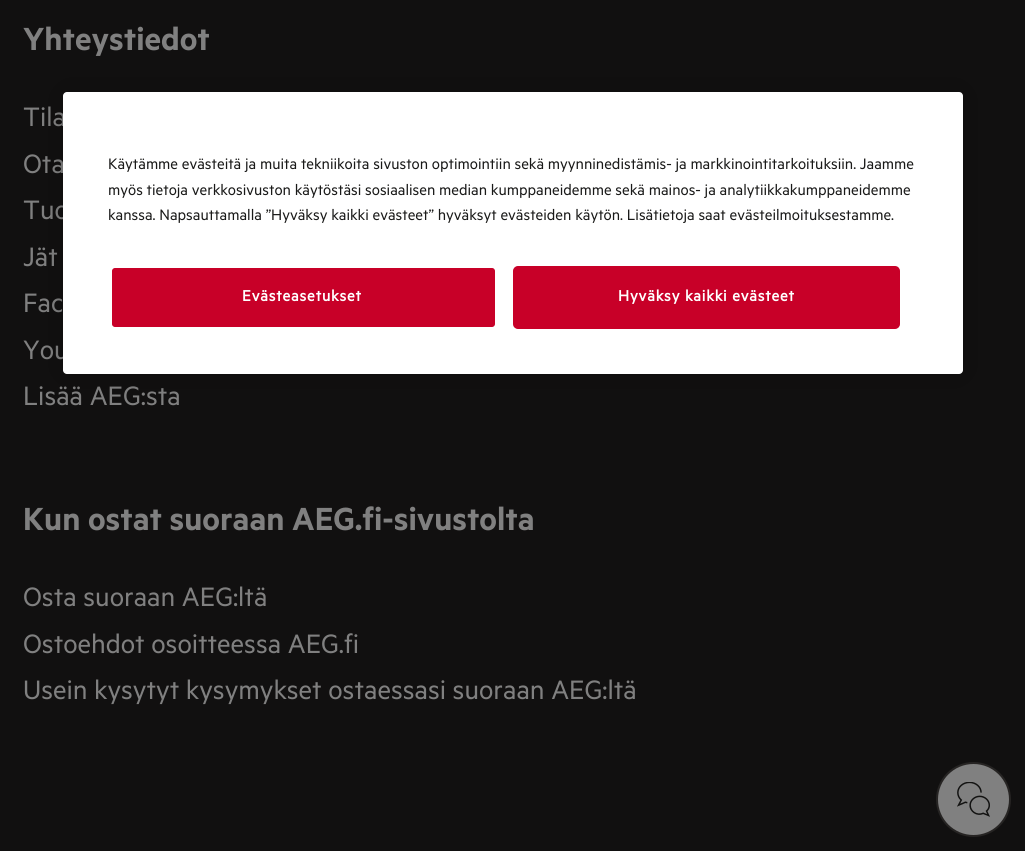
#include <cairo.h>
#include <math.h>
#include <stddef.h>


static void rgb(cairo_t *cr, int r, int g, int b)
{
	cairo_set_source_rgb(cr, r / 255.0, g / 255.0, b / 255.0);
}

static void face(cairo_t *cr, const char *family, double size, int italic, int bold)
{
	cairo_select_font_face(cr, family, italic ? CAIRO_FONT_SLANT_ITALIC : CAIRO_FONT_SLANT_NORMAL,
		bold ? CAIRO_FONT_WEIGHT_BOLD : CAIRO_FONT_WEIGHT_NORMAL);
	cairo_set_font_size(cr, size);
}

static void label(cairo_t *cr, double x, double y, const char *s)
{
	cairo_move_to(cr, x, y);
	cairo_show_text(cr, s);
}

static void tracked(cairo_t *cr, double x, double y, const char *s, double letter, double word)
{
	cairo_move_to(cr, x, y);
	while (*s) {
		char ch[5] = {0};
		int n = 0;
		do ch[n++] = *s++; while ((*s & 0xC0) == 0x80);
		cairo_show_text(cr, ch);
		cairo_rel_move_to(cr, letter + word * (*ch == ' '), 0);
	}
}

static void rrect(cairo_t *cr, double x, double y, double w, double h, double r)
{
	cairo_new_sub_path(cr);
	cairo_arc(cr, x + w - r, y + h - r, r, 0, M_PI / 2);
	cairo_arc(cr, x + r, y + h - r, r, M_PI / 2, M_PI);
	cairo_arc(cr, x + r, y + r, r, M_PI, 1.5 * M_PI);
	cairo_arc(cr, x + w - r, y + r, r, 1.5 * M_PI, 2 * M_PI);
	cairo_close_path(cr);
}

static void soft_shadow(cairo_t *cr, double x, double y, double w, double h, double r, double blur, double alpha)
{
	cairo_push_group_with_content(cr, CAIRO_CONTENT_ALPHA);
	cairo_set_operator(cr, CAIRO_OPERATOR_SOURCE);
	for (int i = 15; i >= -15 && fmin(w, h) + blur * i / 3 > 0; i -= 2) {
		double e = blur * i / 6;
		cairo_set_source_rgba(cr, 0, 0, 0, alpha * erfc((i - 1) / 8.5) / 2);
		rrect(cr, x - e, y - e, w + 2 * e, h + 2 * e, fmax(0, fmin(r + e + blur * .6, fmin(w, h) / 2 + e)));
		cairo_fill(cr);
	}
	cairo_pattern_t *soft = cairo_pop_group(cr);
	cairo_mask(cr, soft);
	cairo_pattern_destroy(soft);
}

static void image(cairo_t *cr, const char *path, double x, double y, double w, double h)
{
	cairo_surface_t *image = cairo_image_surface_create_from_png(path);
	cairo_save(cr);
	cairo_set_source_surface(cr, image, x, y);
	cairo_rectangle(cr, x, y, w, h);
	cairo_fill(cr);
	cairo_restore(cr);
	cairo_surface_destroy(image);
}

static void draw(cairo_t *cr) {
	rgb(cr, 17, 16, 16);
	cairo_paint(cr);
	face(cr, "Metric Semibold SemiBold", 36, 0, 0);
	rgb(cr, 128, 128, 128);
	label(cr, 23, 50, "Yhteystiedot");
	face(cr, "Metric", 30, 0, 0);
	label(cr, 23, 126, "Tila");
	label(cr, 23, 173, "Ota");
	label(cr, 23, 219, "Tuo");
	label(cr, 23, 266, "Jät");
	label(cr, 23, 312, "Fac");
	label(cr, 23, 359, "You");
	label(cr, 23, 405, "Lisää AEG:sta");
	face(cr, "Metric Semibold SemiBold", 36, 0, 0);
	label(cr, 23, 530, "Kun ostat suoraan AEG.fi-sivustolta");
	face(cr, "Metric", 30, 0, 0);
	label(cr, 23, 606, "Osta suoraan AEG:ltä");
	label(cr, 23, 653, "Ostoehdot osoitteessa AEG.fi");
	label(cr, 23, 699, "Usein kysytyt kysymykset ostaessasi suoraan AEG:ltä");
	rgb(cr, 0, 0, 0);
	soft_shadow(cr, 63, 92, 900, 282, 4, 13.5, 0.2);
	rgb(cr, 255, 255, 255);
	rrect(cr, 63, 92, 900, 282, 4);
	cairo_fill(cr);
	face(cr, "Metric", 17.05, 0, 0);
	rgb(cr, 26, 26, 25);
	label(cr, 108, 169, "Käytämme evästeitä ja muita tekniikoita sivuston optimointiin sekä myynninedistämis- ja markkinointitarkoituksiin. Jaamme");
	label(cr, 108, 195, "myös tietoja verkkosivuston käytöstäsi sosiaalisen median kumppaneidemme sekä mainos- ja analytiikkakumppaneidemme");
	label(cr, 108, 220, "kanssa. Napsauttamalla ”Hyväksy kaikki evästeet” hyväksyt evästeiden käytön. Lisätietoja saat evästeilmoituksestamme.");
	rgb(cr, 200, 0, 40);
	rrect(cr, 111, 267, 385, 61, 4);
	cairo_fill_preserve(cr);
	rgb(cr, 255, 255, 255);
	cairo_stroke(cr);
	face(cr, "Metric", 17.05, 0, 1);
	tracked(cr, 242, 301, "Evästeasetukset", 0.85, 0);
	rgb(cr, 200, 0, 40);
	rrect(cr, 514, 267, 385, 61, 4);
	cairo_fill_preserve(cr);
	cairo_stroke(cr);
	rgb(cr, 255, 255, 255);
	tracked(cr, 618, 301, "Hyväksy kaikki evästeet", 0.85, 0);
	rgb(cr, 128, 128, 128);
	cairo_new_path(cr);
	cairo_arc(cr, 973.5, 799.5, 36.5, 0, 2 * M_PI);
	cairo_fill_preserve(cr);
	rgb(cr, 38, 36, 35);
	cairo_stroke(cr);
	image(cr, "image0.png", 957, 782, 33, 35);
}

int main(void) {
	cairo_surface_t *surface = cairo_image_surface_create(CAIRO_FORMAT_RGB24, 1025, 851);
	cairo_t *cr = cairo_create(surface);
	cairo_font_options_t *options = cairo_font_options_create();
	cairo_font_options_set_hint_metrics(options, CAIRO_HINT_METRICS_OFF);
	cairo_font_options_set_hint_style(options, CAIRO_HINT_STYLE_NONE);
	cairo_set_font_options(cr, options);
	cairo_set_miter_limit(cr, 4);
	draw(cr);
	cairo_surface_write_to_png(surface, "render.png");
	cairo_font_options_destroy(options);
	cairo_destroy(cr);
	cairo_surface_destroy(surface);
	return 0;
}
